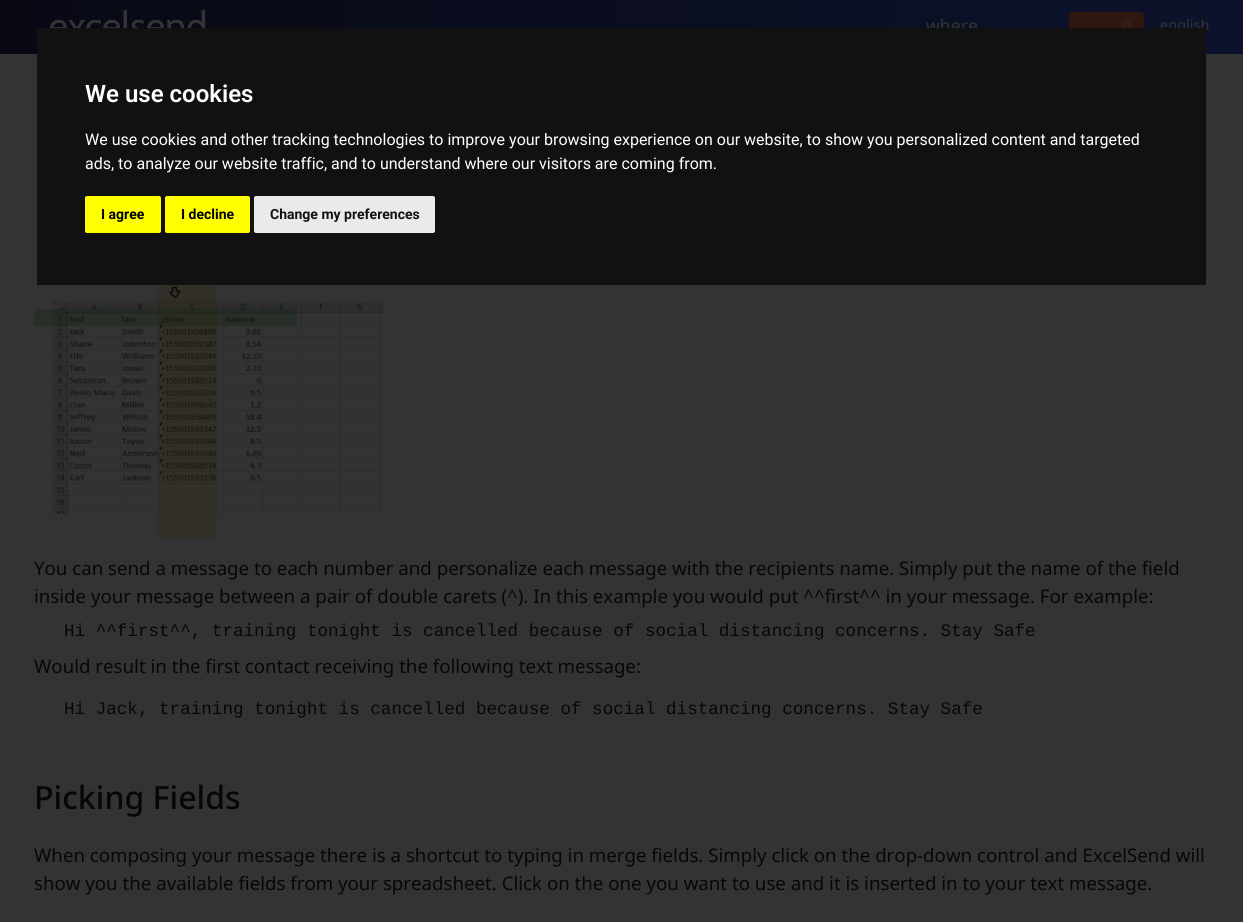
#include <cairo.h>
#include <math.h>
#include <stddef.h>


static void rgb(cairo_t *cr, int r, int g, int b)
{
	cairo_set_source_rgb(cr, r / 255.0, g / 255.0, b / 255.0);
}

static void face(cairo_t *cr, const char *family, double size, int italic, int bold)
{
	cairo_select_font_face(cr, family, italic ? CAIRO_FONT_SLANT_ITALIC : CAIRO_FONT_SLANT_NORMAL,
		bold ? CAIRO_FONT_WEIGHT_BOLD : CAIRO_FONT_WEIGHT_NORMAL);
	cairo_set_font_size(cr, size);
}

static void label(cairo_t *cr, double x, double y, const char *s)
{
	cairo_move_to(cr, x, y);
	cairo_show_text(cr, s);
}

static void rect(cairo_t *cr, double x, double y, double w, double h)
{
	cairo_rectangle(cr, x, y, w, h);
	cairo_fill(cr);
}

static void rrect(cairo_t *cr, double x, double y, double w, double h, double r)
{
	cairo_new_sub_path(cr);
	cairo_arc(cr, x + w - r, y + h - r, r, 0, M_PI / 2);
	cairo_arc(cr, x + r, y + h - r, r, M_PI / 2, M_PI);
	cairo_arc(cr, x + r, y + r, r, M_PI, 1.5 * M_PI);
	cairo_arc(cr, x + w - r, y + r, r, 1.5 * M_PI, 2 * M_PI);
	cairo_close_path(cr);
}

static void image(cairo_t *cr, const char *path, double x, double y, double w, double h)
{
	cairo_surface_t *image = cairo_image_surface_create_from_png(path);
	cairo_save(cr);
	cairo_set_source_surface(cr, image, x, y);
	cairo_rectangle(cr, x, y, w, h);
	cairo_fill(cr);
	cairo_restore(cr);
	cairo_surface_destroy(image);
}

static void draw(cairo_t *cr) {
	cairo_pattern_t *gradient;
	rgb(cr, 51, 51, 51);
	cairo_paint(cr);
	gradient = cairo_pattern_create_linear(0, 27, 1243, 27);
	cairo_pattern_add_color_stop_rgba(gradient, 0, 0.031, 0.035, 0.075, 1);
	cairo_pattern_add_color_stop_rgba(gradient, 1, 0.047, 0.071, 0.169, 1);
	cairo_set_source(cr, gradient);
	cairo_pattern_destroy(gradient);
	rect(cr, 0, 0, 1243, 54);
	image(cr, "image0.png", 49, 10, 157, 18);
	face(cr, "Noto Sans", 17.6, 0, 0);
	rgb(cr, 51, 51, 51);
	label(cr, 926, 32, "where");
	rgb(cr, 48, 23, 15);
	rrect(cr, 1069, 12, 75, 30, 4);
	cairo_fill(cr);
	image(cr, "image1.png", 1124, 21, 6, 7);
	face(cr, "Noto Sans", 14.5, 0, 0);
	rgb(cr, 51, 51, 51);
	label(cr, 1160, 30, "english");
	rgb(cr, 17, 17, 17);
	rect(cr, 37, 28, 1169, 257);
	face(cr, "Roboto SemiBold", 24, 0, 0);
	rgb(cr, 255, 255, 255);
	label(cr, 85, 102, "We use cookies");
	face(cr, "Roboto", 16, 0, 0);
	label(cr, 85, 145, "We use cookies and other tracking technologies to improve your browsing experience on our website, to show you personalized content and targeted");
	label(cr, 85, 169, "ads, to analyze our website traffic, and to understand where our visitors are coming from.");
	rgb(cr, 255, 255, 0);
	rrect(cr, 85, 196, 76, 37, 2);
	cairo_fill(cr);
	face(cr, "Roboto", 14, 0, 1);
	rgb(cr, 0, 0, 0);
	label(cr, 101, 219, "I agree");
	rgb(cr, 255, 255, 0);
	rrect(cr, 165, 196, 85, 37, 2);
	cairo_fill(cr);
	rgb(cr, 0, 0, 0);
	label(cr, 181, 219, "I decline");
	rgb(cr, 234, 234, 234);
	rrect(cr, 254, 196, 181, 37, 2);
	cairo_fill(cr);
	rgb(cr, 17, 17, 17);
	label(cr, 270, 219, "Change my preferences");
	image(cr, "image2.png", 34, 285, 350, 253);
	face(cr, "Noto Sans", 18.67, 0, 0);
	rgb(cr, 7, 7, 8);
	label(cr, 34, 575, "You can send a message to each number and personalize each message with the recipients name. Simply put the name of the field");
	label(cr, 34, 603, "inside your message between a pair of double carets (^). In this example you would put ^^first^^ in your message. For example:");
	face(cr, "Liberation Mono", 17.6, 0, 0);
	label(cr, 64, 636, "Hi ^^first^^, training tonight is cancelled because of social distancing concerns. Stay Safe");
	face(cr, "Noto Sans", 18.67, 0, 0);
	label(cr, 34, 673, "Would result in the first contact receiving the following text message:");
	face(cr, "Liberation Mono", 17.6, 0, 0);
	label(cr, 64, 714, "Hi Jack, training tonight is cancelled because of social distancing concerns. Stay Safe");
	face(cr, "Noto Sans Medium", 32, 0, 0);
	label(cr, 34, 809, "Picking Fields");
	face(cr, "Noto Sans", 18.67, 0, 0);
	label(cr, 34, 862, "When composing your message there is a shortcut to typing in merge fields. Simply click on the drop-down control and ExcelSend will");
	label(cr, 34, 890, "show you the available fields from your spreadsheet. Click on the one you want to use and it is inserted in to your text message.");
}

int main(void) {
	cairo_surface_t *surface = cairo_image_surface_create(CAIRO_FORMAT_RGB24, 1243, 922);
	cairo_t *cr = cairo_create(surface);
	cairo_font_options_t *options = cairo_font_options_create();
	cairo_font_options_set_hint_metrics(options, CAIRO_HINT_METRICS_OFF);
	cairo_font_options_set_hint_style(options, CAIRO_HINT_STYLE_NONE);
	cairo_set_font_options(cr, options);
	cairo_set_miter_limit(cr, 4);
	draw(cr);
	cairo_surface_write_to_png(surface, "render.png");
	cairo_font_options_destroy(options);
	cairo_destroy(cr);
	cairo_surface_destroy(surface);
	return 0;
}
